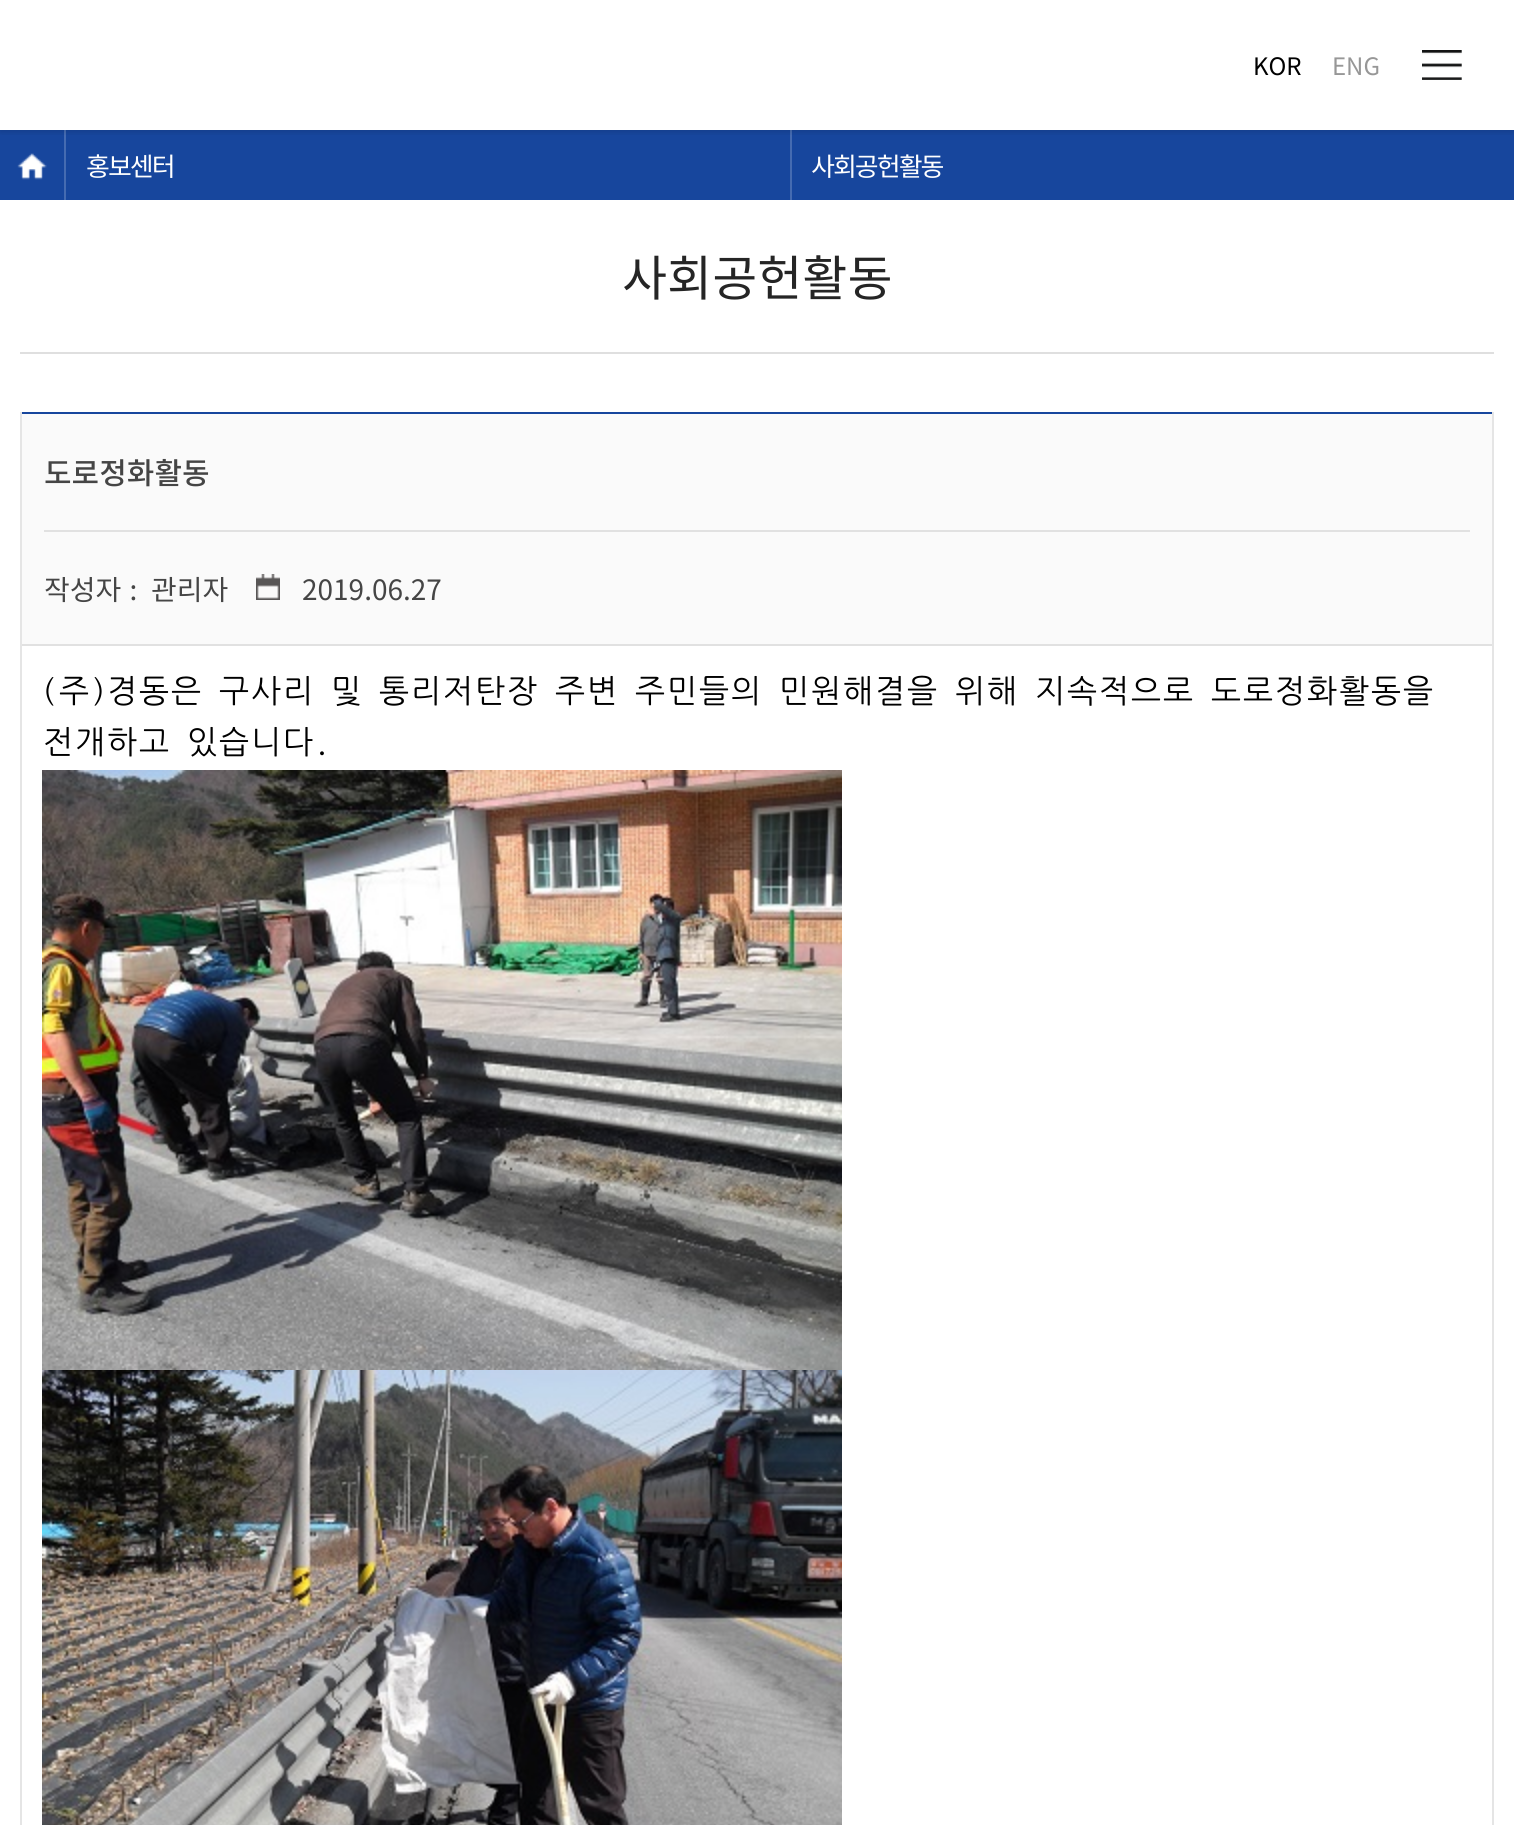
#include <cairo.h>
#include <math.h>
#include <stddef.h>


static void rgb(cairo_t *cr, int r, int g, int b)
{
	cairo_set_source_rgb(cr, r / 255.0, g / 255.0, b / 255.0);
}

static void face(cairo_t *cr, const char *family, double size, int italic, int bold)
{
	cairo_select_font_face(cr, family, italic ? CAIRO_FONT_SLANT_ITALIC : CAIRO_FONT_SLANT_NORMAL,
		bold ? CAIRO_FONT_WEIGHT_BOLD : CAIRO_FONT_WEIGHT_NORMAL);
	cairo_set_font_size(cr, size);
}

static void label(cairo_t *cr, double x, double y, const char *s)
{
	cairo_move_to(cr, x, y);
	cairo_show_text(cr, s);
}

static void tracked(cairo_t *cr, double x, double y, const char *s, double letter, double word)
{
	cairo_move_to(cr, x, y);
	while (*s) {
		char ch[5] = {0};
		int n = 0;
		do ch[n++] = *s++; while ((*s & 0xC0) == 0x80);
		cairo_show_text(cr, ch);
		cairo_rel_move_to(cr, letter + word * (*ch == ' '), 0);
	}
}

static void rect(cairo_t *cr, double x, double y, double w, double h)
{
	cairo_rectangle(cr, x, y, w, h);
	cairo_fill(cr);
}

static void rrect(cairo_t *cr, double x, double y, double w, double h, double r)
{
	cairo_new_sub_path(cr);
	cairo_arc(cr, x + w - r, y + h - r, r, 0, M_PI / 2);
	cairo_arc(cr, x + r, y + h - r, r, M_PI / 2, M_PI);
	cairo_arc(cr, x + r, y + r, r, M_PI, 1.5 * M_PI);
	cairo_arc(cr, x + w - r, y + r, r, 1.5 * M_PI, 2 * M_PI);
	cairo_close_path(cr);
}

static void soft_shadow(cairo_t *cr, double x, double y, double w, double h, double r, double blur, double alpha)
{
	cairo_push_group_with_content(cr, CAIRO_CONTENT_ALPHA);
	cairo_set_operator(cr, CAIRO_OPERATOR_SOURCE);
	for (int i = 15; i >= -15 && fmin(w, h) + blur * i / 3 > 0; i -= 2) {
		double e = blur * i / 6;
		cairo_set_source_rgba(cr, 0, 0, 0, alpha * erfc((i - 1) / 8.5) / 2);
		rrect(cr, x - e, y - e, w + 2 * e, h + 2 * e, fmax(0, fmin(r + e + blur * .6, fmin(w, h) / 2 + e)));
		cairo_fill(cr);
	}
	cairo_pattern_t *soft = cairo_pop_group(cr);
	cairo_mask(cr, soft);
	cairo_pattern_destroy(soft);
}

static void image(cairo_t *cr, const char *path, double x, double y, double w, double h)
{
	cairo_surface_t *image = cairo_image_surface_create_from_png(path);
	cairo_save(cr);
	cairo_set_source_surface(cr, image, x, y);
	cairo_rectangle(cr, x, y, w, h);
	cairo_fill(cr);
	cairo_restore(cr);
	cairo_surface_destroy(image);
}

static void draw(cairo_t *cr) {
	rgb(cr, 255, 255, 255);
	cairo_paint(cr);
	rgb(cr, 23, 70, 157);
	rect(cr, 0, 130, 1514, 70);
	rgb(cr, 69, 107, 177);
	rect(cr, 64, 130, 2, 70);
	rect(cr, 790, 130, 2, 70);
	cairo_save(cr);
	cairo_rectangle(cr, 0, 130, 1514, 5);
	cairo_clip(cr);
	rgb(cr, 0, 0, 0);
	soft_shadow(cr, 0, 2, 1514, 130, 0, 3, 0.12);
	cairo_restore(cr);
	face(cr, "Noto Sans CJK KR", 24, 0, 0);
	rgb(cr, 0, 0, 0);
	label(cr, 1253, 75, "KOR");
	rgb(cr, 151, 151, 151);
	label(cr, 1332, 75, "ENG");
	image(cr, "image0.png", 1422, 50, 40, 30);
	image(cr, "image1.png", 17, 153, 30, 27);
	face(cr, "Noto Sans CJK KR", 26, 0, 0);
	rgb(cr, 255, 255, 255);
	tracked(cr, 86, 176, "홍보센터", -2, 0);
	tracked(cr, 811, 176, "사회공헌활동", -2, 0);
	rgb(cr, 223, 223, 223);
	rect(cr, 20, 352, 1474, 2);
	face(cr, "Noto Sans CJK KR", 49, 0, 0);
	rgb(cr, 37, 37, 37);
	label(cr, 622, 296, "사회공헌활동");
	rgb(cr, 23, 70, 157);
	rect(cr, 20, 412, 1474, 2);
	rgb(cr, 229, 229, 229);
	rect(cr, 1492, 412, 2, 1413);
	rect(cr, 20, 412, 2, 1413);
	rgb(cr, 250, 250, 250);
	rect(cr, 22, 414, 1470, 230);
	rgb(cr, 225, 225, 225);
	rect(cr, 22, 644, 1470, 2);
	rect(cr, 44, 530, 1426, 2);
	face(cr, "Noto Sans CJK KR Medium", 30, 0, 0);
	rgb(cr, 69, 69, 69);
	label(cr, 44, 484, "도로정화활동");
	face(cr, "Noto Sans CJK KR", 28, 0, 0);
	tracked(cr, 44, 600, "작성자 :", 0, 2);
	label(cr, 151, 600, "관리자");
	image(cr, "image2.png", 256, 574, 24, 26);
	label(cr, 302, 600, "2019.06.27");
	face(cr, "NanumGothicCoding", 32, 0, 0);
	rgb(cr, 0, 0, 0);
	label(cr, 42, 701, "(주)경동은 구사리 및 통리저탄장 주변 주민들의 민원해결을 위해 지속적으로 도로정화활동을");
	label(cr, 42, 752, "전개하고 있습니다.");
	image(cr, "image3.png", 42, 770, 800, 600);
	image(cr, "image4.png", 42, 1370, 800, 455);
}

int main(void) {
	cairo_surface_t *surface = cairo_image_surface_create(CAIRO_FORMAT_RGB24, 1514, 1825);
	cairo_t *cr = cairo_create(surface);
	cairo_font_options_t *options = cairo_font_options_create();
	cairo_font_options_set_hint_metrics(options, CAIRO_HINT_METRICS_OFF);
	cairo_font_options_set_hint_style(options, CAIRO_HINT_STYLE_NONE);
	cairo_set_font_options(cr, options);
	cairo_set_miter_limit(cr, 4);
	draw(cr);
	cairo_surface_write_to_png(surface, "render.png");
	cairo_font_options_destroy(options);
	cairo_destroy(cr);
	cairo_surface_destroy(surface);
	return 0;
}
